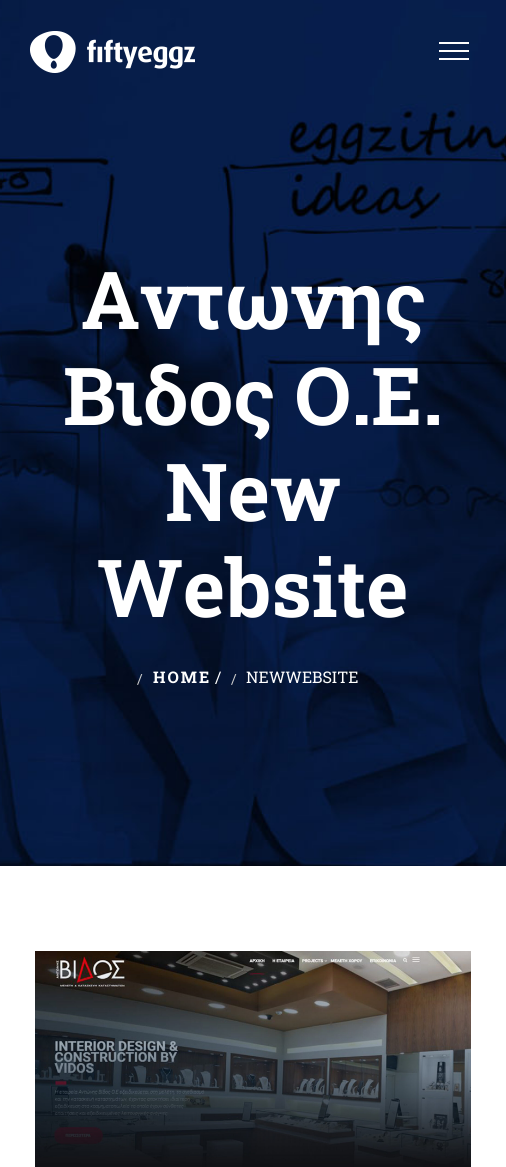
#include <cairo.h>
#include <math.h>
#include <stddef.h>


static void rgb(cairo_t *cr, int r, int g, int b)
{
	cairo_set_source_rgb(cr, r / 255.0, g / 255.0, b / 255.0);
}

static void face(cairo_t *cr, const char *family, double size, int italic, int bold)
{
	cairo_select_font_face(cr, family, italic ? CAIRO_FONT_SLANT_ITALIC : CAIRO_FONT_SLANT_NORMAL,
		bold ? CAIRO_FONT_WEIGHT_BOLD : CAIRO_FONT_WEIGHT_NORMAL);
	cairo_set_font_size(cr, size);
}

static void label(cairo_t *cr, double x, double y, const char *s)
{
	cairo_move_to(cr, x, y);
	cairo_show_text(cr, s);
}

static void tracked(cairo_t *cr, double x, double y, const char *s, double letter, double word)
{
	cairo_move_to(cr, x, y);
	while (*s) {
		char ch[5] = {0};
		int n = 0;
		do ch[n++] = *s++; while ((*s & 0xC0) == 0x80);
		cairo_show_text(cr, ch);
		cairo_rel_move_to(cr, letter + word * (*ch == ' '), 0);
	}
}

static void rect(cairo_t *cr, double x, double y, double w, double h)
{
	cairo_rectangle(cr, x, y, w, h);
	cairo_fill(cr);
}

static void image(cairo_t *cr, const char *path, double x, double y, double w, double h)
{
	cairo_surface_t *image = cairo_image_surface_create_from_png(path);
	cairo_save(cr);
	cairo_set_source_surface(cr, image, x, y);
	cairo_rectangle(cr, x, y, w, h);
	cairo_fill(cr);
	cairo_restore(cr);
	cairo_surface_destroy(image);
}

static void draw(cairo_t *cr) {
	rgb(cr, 255, 255, 255);
	cairo_paint(cr);
	image(cr, "image1.png", 0, 0, 506, 866);
	image(cr, "image0.png", 30, 31, 165, 42);
	rgb(cr, 253, 253, 253);
	rect(cr, 439, 42, 30, 2);
	rect(cr, 439, 50, 30, 2);
	rect(cr, 439, 58, 30, 2);
	face(cr, "Roboto Slab", 80, 0, 1);
	rgb(cr, 255, 255, 255);
	label(cr, 81, 329, "Αντωνης");
	label(cr, 63, 425, "Βιδος Ο.Ε.");
	label(cr, 165, 521, "New");
	label(cr, 97, 617, "Website");
	face(cr, "Roboto Slab", 14, 0, 0);
	rgb(cr, 204, 204, 204);
	label(cr, 137, 684, "/");
	face(cr, "Roboto Slab", 16, 0, 1);
	rgb(cr, 255, 255, 255);
	tracked(cr, 153, 683, "HOME", 2, 0);
	face(cr, "Roboto Slab", 16, 0, 0);
	label(cr, 215, 683, "/");
	face(cr, "Roboto Slab", 14, 0, 0);
	rgb(cr, 204, 204, 204);
	label(cr, 231, 684, "/");
	face(cr, "Roboto Slab", 16, 0, 0);
	rgb(cr, 255, 255, 255);
	label(cr, 246, 683, "NEWWEBSITE");
	image(cr, "image2.png", 35, 951, 436, 216);
}

int main(void) {
	cairo_surface_t *surface = cairo_image_surface_create(CAIRO_FORMAT_RGB24, 506, 1167);
	cairo_t *cr = cairo_create(surface);
	cairo_font_options_t *options = cairo_font_options_create();
	cairo_font_options_set_hint_metrics(options, CAIRO_HINT_METRICS_OFF);
	cairo_font_options_set_hint_style(options, CAIRO_HINT_STYLE_NONE);
	cairo_set_font_options(cr, options);
	cairo_set_miter_limit(cr, 4);
	draw(cr);
	cairo_surface_write_to_png(surface, "render.png");
	cairo_font_options_destroy(options);
	cairo_destroy(cr);
	cairo_surface_destroy(surface);
	return 0;
}
